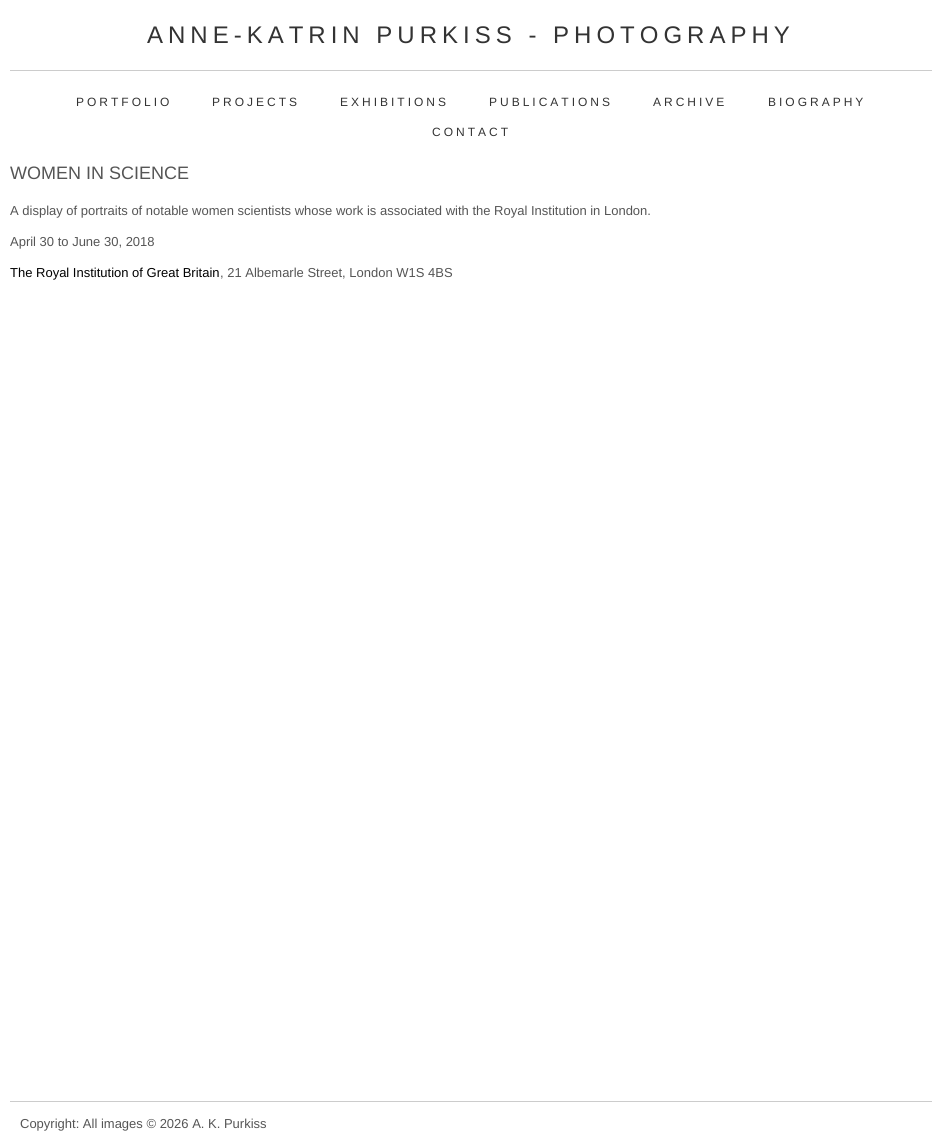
#include <cairo.h>
#include <math.h>
#include <stddef.h>


static void rgb(cairo_t *cr, int r, int g, int b)
{
	cairo_set_source_rgb(cr, r / 255.0, g / 255.0, b / 255.0);
}

static void face(cairo_t *cr, const char *family, double size, int italic, int bold)
{
	cairo_select_font_face(cr, family, italic ? CAIRO_FONT_SLANT_ITALIC : CAIRO_FONT_SLANT_NORMAL,
		bold ? CAIRO_FONT_WEIGHT_BOLD : CAIRO_FONT_WEIGHT_NORMAL);
	cairo_set_font_size(cr, size);
}

static void label(cairo_t *cr, double x, double y, const char *s)
{
	cairo_move_to(cr, x, y);
	cairo_show_text(cr, s);
}

static void tracked(cairo_t *cr, double x, double y, const char *s, double letter, double word)
{
	cairo_move_to(cr, x, y);
	while (*s) {
		char ch[5] = {0};
		int n = 0;
		do ch[n++] = *s++; while ((*s & 0xC0) == 0x80);
		cairo_show_text(cr, ch);
		cairo_rel_move_to(cr, letter + word * (*ch == ' '), 0);
	}
}

static void rect(cairo_t *cr, double x, double y, double w, double h)
{
	cairo_rectangle(cr, x, y, w, h);
	cairo_fill(cr);
}

static void draw(cairo_t *cr) {
	rgb(cr, 255, 255, 255);
	cairo_paint(cr);
	face(cr, "Liberation Sans", 24, 0, 0);
	rgb(cr, 51, 51, 51);
	tracked(cr, 147, 43, "ANNE-KATRIN PURKISS - PHOTOGRAPHY", 5, 0);
	rgb(cr, 204, 204, 204);
	rect(cr, 10, 70, 922, 1);
	face(cr, "Liberation Sans", 12, 0, 0);
	rgb(cr, 51, 51, 51);
	tracked(cr, 76, 106, "PORTFOLIO", 3, 0);
	tracked(cr, 212, 106, "PROJECTS", 3, 0);
	tracked(cr, 340, 106, "EXHIBITIONS", 3, 0);
	tracked(cr, 489, 106, "PUBLICATIONS", 3, 0);
	tracked(cr, 653, 106, "ARCHIVE", 3, 0);
	tracked(cr, 768, 106, "BIOGRAPHY", 3, 0);
	tracked(cr, 432, 136, "CONTACT", 3, 0);
	face(cr, "Liberation Sans", 18, 0, 0);
	rgb(cr, 85, 85, 85);
	label(cr, 10, 179, "WOMEN IN SCIENCE");
	face(cr, "Liberation Sans", 13, 0, 0);
	label(cr, 10, 215, "A display of portraits of notable women scientists whose work is associated with the Royal Institution in London.");
	label(cr, 10, 246, "April 30 to June 30, 2018");
	rgb(cr, 0, 0, 0);
	label(cr, 10, 277, "The Royal Institution of Great Britain");
	rgb(cr, 85, 85, 85);
	label(cr, 220, 277, ", 21 Albemarle Street, London W1S 4BS");
	rgb(cr, 204, 204, 204);
	rect(cr, 10, 1101, 922, 1);
	rgb(cr, 85, 85, 85);
	label(cr, 20, 1128, "Copyright: All images © 2026 A. K. Purkiss");
}

int main(void) {
	cairo_surface_t *surface = cairo_image_surface_create(CAIRO_FORMAT_RGB24, 942, 1146);
	cairo_t *cr = cairo_create(surface);
	cairo_font_options_t *options = cairo_font_options_create();
	cairo_font_options_set_hint_metrics(options, CAIRO_HINT_METRICS_OFF);
	cairo_font_options_set_hint_style(options, CAIRO_HINT_STYLE_NONE);
	cairo_set_font_options(cr, options);
	cairo_set_miter_limit(cr, 4);
	draw(cr);
	cairo_surface_write_to_png(surface, "render.png");
	cairo_font_options_destroy(options);
	cairo_destroy(cr);
	cairo_surface_destroy(surface);
	return 0;
}
